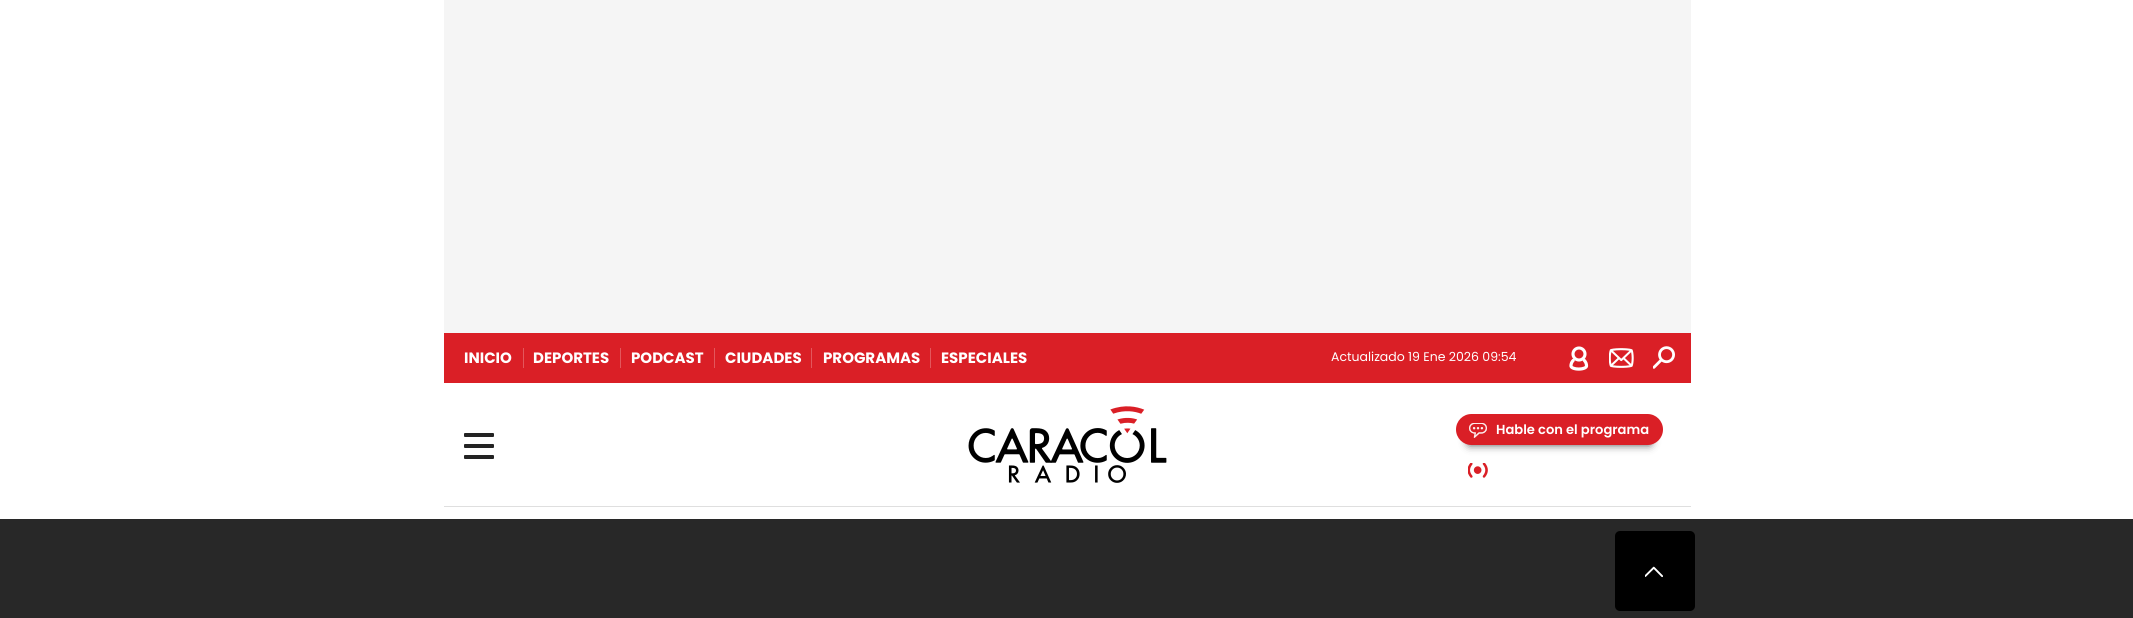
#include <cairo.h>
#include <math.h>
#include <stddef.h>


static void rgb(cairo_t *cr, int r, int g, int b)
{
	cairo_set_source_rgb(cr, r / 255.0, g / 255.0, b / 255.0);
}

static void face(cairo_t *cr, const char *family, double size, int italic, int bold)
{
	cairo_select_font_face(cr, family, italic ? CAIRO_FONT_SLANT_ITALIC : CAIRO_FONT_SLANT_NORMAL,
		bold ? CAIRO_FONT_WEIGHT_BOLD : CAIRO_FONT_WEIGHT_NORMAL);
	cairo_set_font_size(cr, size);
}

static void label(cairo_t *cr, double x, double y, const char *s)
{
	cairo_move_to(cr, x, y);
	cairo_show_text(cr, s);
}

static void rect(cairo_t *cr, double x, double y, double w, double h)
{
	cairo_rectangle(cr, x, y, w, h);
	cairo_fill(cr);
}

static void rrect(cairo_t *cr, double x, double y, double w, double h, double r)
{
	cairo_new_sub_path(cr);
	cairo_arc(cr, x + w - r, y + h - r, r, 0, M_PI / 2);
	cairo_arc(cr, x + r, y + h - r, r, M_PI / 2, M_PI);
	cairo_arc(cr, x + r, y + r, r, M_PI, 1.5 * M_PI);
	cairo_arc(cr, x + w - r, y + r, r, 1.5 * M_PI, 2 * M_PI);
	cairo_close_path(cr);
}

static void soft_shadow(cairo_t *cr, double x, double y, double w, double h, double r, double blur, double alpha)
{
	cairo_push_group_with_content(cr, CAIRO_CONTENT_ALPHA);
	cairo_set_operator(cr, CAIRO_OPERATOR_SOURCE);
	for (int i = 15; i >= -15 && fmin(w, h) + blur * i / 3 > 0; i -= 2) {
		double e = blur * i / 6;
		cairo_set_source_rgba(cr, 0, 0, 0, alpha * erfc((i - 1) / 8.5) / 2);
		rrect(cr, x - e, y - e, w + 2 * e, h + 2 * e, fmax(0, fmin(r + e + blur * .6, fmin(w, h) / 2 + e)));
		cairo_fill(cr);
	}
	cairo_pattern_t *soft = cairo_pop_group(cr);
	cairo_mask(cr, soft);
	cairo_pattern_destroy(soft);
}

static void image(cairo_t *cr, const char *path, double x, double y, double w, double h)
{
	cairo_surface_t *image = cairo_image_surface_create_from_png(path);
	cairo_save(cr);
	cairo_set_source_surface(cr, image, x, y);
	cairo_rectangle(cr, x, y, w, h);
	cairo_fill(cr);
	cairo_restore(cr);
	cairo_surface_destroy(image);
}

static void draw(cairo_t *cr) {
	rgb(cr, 255, 255, 255);
	cairo_paint(cr);
	rgb(cr, 245, 245, 245);
	rect(cr, 444, 0, 1247, 333);
	rgb(cr, 218, 31, 38);
	rect(cr, 444, 333, 1247, 50);
	face(cr, "Poppins", 15, 0, 1);
	rgb(cr, 255, 255, 255);
	label(cr, 464, 363, "INICIO");
	rgb(cr, 227, 87, 92);
	rect(cr, 523, 348, 1, 20);
	rgb(cr, 255, 255, 255);
	label(cr, 533, 363, "DEPORTES");
	rgb(cr, 227, 87, 92);
	rect(cr, 620, 348, 1, 20);
	rgb(cr, 255, 255, 255);
	label(cr, 631, 363, "PODCAST");
	rgb(cr, 227, 87, 92);
	rect(cr, 714, 348, 1, 20);
	rgb(cr, 255, 255, 255);
	label(cr, 725, 363, "CIUDADES");
	rgb(cr, 227, 87, 92);
	rect(cr, 811, 348, 1, 20);
	rgb(cr, 255, 255, 255);
	label(cr, 823, 363, "PROGRAMAS");
	rgb(cr, 227, 87, 92);
	rect(cr, 930, 348, 1, 20);
	rgb(cr, 255, 255, 255);
	label(cr, 941, 363, "ESPECIALES");
	face(cr, "Poppins", 12.5, 0, 0);
	label(cr, 1331, 361, "Actualizado 19 Ene 2026 09:54");
	image(cr, "image0.png", 1569, 346, 20, 25);
	image(cr, "image1.png", 1609, 348, 25, 20);
	image(cr, "image2.png", 1653, 346, 22, 23);
	rgb(cr, 223, 223, 223);
	rect(cr, 444, 506, 1247, 1);
	image(cr, "image3.png", 968, 406, 199, 77);
	rgb(cr, 0, 0, 0);
	soft_shadow(cr, 1470, 439, 179, 4, 2, 5, 1);
	rgb(cr, 218, 31, 38);
	rrect(cr, 1456, 414, 207, 31, 15.5);
	cairo_fill(cr);
	image(cr, "image4.png", 1469, 423, 18, 15);
	face(cr, "Poppins SemiBold", 13.1, 0, 0);
	rgb(cr, 255, 255, 255);
	label(cr, 1496, 434, "Hable con el programa");
	image(cr, "image5.png", 1468, 463, 20, 15);
	rgb(cr, 35, 35, 35);
	rrect(cr, 464, 444, 30, 4, 1);
	cairo_fill(cr);
	rrect(cr, 464, 433, 30, 4, 1);
	cairo_fill(cr);
	rrect(cr, 464, 455, 30, 4, 1);
	cairo_fill(cr);
	rgb(cr, 40, 40, 40);
	rect(cr, 0, 519, 1705, 99);
	rect(cr, 1705, 519, 428, 99);
	rgb(cr, 0, 0, 0);
	rrect(cr, 1615, 531, 80, 80, 5);
	cairo_fill(cr);
	image(cr, "image6.png", 1645, 566, 18, 12);
}

int main(void) {
	cairo_surface_t *surface = cairo_image_surface_create(CAIRO_FORMAT_RGB24, 2133, 618);
	cairo_t *cr = cairo_create(surface);
	cairo_font_options_t *options = cairo_font_options_create();
	cairo_font_options_set_hint_metrics(options, CAIRO_HINT_METRICS_OFF);
	cairo_font_options_set_hint_style(options, CAIRO_HINT_STYLE_NONE);
	cairo_set_font_options(cr, options);
	cairo_set_miter_limit(cr, 4);
	draw(cr);
	cairo_surface_write_to_png(surface, "render.png");
	cairo_font_options_destroy(options);
	cairo_destroy(cr);
	cairo_surface_destroy(surface);
	return 0;
}
